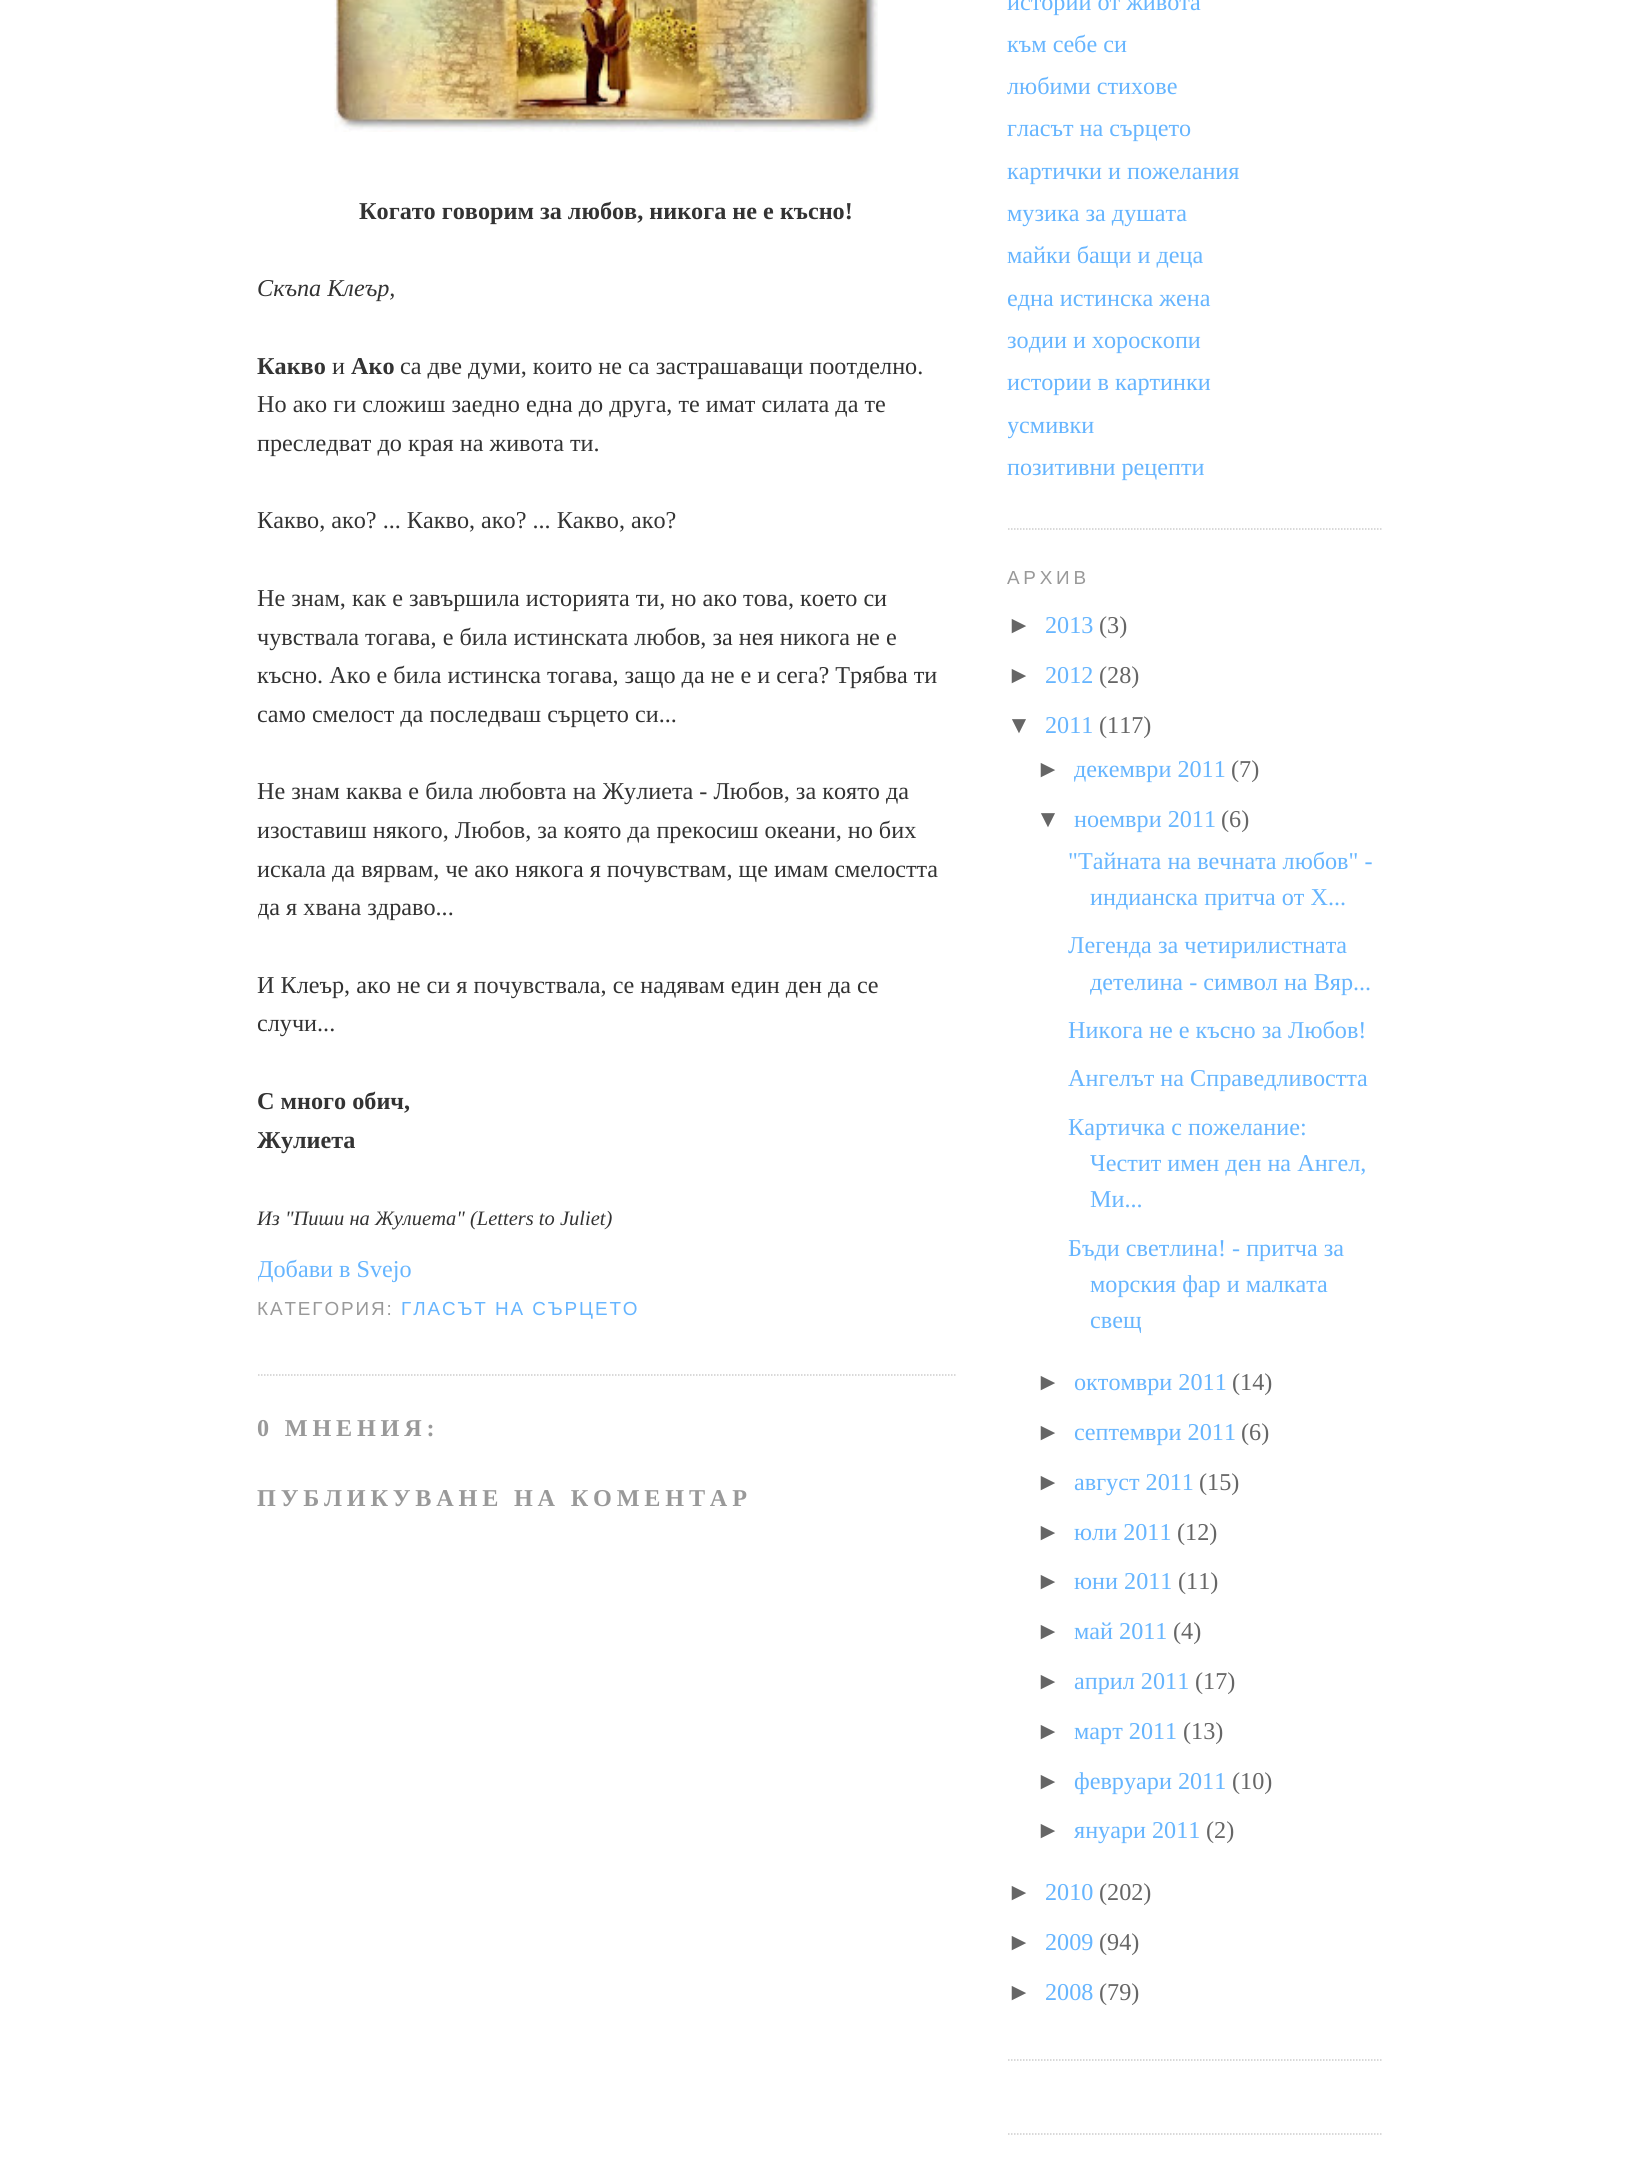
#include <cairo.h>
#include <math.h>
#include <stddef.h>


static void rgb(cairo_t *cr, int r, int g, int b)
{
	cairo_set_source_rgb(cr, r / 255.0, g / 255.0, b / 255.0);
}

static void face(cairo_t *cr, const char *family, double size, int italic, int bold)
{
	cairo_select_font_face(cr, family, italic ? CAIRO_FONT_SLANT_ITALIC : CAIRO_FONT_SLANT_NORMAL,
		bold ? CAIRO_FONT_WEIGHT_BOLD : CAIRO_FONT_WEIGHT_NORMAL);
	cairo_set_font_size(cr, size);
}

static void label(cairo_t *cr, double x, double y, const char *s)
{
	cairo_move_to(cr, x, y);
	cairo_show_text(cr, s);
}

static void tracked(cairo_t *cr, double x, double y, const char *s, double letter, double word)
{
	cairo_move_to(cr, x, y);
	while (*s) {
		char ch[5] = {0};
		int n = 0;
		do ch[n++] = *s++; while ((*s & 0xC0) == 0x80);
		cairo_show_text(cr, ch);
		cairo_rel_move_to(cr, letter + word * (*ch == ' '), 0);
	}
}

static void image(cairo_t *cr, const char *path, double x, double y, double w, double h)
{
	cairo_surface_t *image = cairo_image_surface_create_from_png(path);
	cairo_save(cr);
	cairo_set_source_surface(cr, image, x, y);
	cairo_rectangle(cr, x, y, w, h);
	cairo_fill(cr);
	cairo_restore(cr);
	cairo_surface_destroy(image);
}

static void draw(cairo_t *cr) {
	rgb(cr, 255, 255, 255);
	cairo_paint(cr);
	cairo_new_path(cr);
	cairo_move_to(cr, 258, 1375);
	cairo_line_to(cr, 955.5, 1375);
	rgb(cr, 204, 204, 204);
	cairo_set_line_width(cr, 1.5);
	cairo_set_dash(cr, (double[]){1.5, 1.5}, 2, 0);
	cairo_stroke(cr);
	image(cr, "image0.png", 334, 0, 544, 132);
	face(cr, "Liberation Serif", 24.2, 0, 1);
	rgb(cr, 51, 51, 51);
	label(cr, 359, 219, "Когато говорим за любов, никога не е късно!");
	face(cr, "Liberation Serif", 24.2, 1, 0);
	label(cr, 257, 296, "Скъпа Клеър,");
	face(cr, "Liberation Serif", 24.2, 0, 1);
	label(cr, 257, 374, "Какво");
	face(cr, "Liberation Serif", 24.2, 0, 0);
	label(cr, 332, 374, "и");
	face(cr, "Liberation Serif", 24.2, 0, 1);
	label(cr, 351, 374, "Ако");
	face(cr, "Liberation Serif", 24.2, 0, 0);
	label(cr, 400, 374, "са две думи, които не са застрашаващи поотделно.");
	label(cr, 257, 412, "Но ако ги сложиш заедно една до друга, те имат силата да те");
	label(cr, 257, 451, "преследват до края на живота ти.");
	label(cr, 257, 528, "Какво, ако? ... Какво, ако? ... Какво, ако?");
	label(cr, 257, 606, "Не знам, как е завършила историята ти, но ако това, което си");
	label(cr, 257, 645, "чувствала тогава, е била истинската любов, за нея никога не е");
	label(cr, 257, 683, "късно. Ако е била истинска тогава, защо да не е и сега? Трябва ти");
	label(cr, 257, 722, "само смелост да последваш сърцето си...");
	label(cr, 257, 799, "Не знам каква е била любовта на Жулиета - Любов, за която да");
	label(cr, 257, 838, "изоставиш някого, Любов, за която да прекосиш океани, но бих");
	label(cr, 257, 877, "искала да вярвам, че ако някога я почувствам, ще имам смелостта");
	cairo_save(cr);
	cairo_rectangle(cr, 258, 0, 698, 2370);
	cairo_clip(cr);
	label(cr, 257, 915, "да я хвана здраво...");
	cairo_restore(cr);
	label(cr, 257, 993, "И Клеър, ако не си я почувствала, се надявам един ден да се");
	label(cr, 257, 1031, "случи...");
	face(cr, "Liberation Serif", 24.2, 0, 1);
	label(cr, 257, 1109, "С много обич,");
	label(cr, 257, 1148, "Жулиета");
	face(cr, "Liberation Serif", 20.5, 1, 0);
	label(cr, 257, 1225, "Из \"Пиши на Жулиета\" (Letters to Juliet)");
	cairo_save(cr);
	cairo_rectangle(cr, 258, 0, 698, 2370);
	cairo_clip(cr);
	face(cr, "Liberation Serif", 24.2, 0, 0);
	rgb(cr, 102, 181, 255);
	label(cr, 257, 1277, "Добави в Svejo");
	cairo_restore(cr);
	face(cr, "Liberation Sans", 18.9, 0, 0);
	rgb(cr, 153, 153, 153);
	tracked(cr, 257, 1315, "КАТЕГОРИЯ:", 1.9, 0);
	rgb(cr, 102, 181, 255);
	tracked(cr, 401, 1315, "ГЛАСЪТ НА СЪРЦЕТО", 1.9, 0);
	face(cr, "Liberation Serif", 24.2, 0, 1);
	rgb(cr, 153, 153, 153);
	tracked(cr, 257, 1436, "0 МНЕНИЯ:", 4.8, 0);
	tracked(cr, 257, 1506, "ПУБЛИКУВАНЕ НА КОМЕНТАР", 4.8, 0);
	cairo_new_path(cr);
	cairo_move_to(cr, 1008, 529);
	cairo_line_to(cr, 1383, 529);
	rgb(cr, 204, 204, 204);
	cairo_stroke(cr);
	face(cr, "Liberation Serif", 24.2, 0, 0);
	rgb(cr, 102, 181, 255);
	label(cr, 1007, 10, "истории от живота");
	label(cr, 1007, 52, "към себе си");
	label(cr, 1007, 94, "любими стихове");
	label(cr, 1007, 136, "гласът на сърцето");
	label(cr, 1007, 179, "картички и пожелания");
	label(cr, 1007, 221, "музика за душата");
	label(cr, 1007, 263, "майки бащи и деца");
	label(cr, 1007, 306, "една истинска жена");
	label(cr, 1007, 348, "зодии и хороскопи");
	label(cr, 1007, 390, "истории в картинки");
	cairo_save(cr);
	cairo_rectangle(cr, 1008, 0, 375, 2171);
	cairo_clip(cr);
	label(cr, 1007, 433, "усмивки");
	cairo_restore(cr);
	label(cr, 1007, 475, "позитивни рецепти");
	cairo_new_path(cr);
	cairo_move_to(cr, 1008, 2060);
	cairo_line_to(cr, 1383, 2060);
	rgb(cr, 204, 204, 204);
	cairo_stroke(cr);
	face(cr, "Liberation Sans", 18.9, 0, 0);
	rgb(cr, 153, 153, 153);
	tracked(cr, 1007, 584, "АРХИВ", 3.75, 0);
	face(cr, "Liberation Sans", 24.2, 0, 0);
	rgb(cr, 102, 102, 102);
	label(cr, 1007, 633, "►");
	face(cr, "Liberation Serif", 24.2, 0, 0);
	rgb(cr, 102, 181, 255);
	label(cr, 1045, 633, "2013");
	rgb(cr, 102, 102, 102);
	label(cr, 1099, 633, "(3)");
	face(cr, "Liberation Sans", 24.2, 0, 0);
	label(cr, 1007, 683, "►");
	face(cr, "Liberation Serif", 24.2, 0, 0);
	rgb(cr, 102, 181, 255);
	label(cr, 1045, 683, "2012");
	rgb(cr, 102, 102, 102);
	label(cr, 1099, 683, "(28)");
	face(cr, "Liberation Sans", 24.2, 0, 0);
	label(cr, 1007, 733, "▼");
	face(cr, "Liberation Serif", 24.2, 0, 0);
	rgb(cr, 102, 181, 255);
	label(cr, 1045, 733, "2011");
	rgb(cr, 102, 102, 102);
	label(cr, 1099, 733, "(117)");
	face(cr, "Liberation Sans", 24.2, 0, 0);
	label(cr, 1036, 777, "►");
	face(cr, "Liberation Serif", 24.2, 0, 0);
	rgb(cr, 102, 181, 255);
	label(cr, 1074, 777, "декември 2011");
	rgb(cr, 102, 102, 102);
	label(cr, 1231, 777, "(7)");
	face(cr, "Liberation Sans", 24.2, 0, 0);
	label(cr, 1036, 827, "▼");
	face(cr, "Liberation Serif", 24.2, 0, 0);
	rgb(cr, 102, 181, 255);
	label(cr, 1074, 827, "ноември 2011");
	rgb(cr, 102, 102, 102);
	label(cr, 1221, 827, "(6)");
	rgb(cr, 102, 181, 255);
	label(cr, 1068, 869, "\"Тайната на вечната любов\" -");
	label(cr, 1090, 905, "индианска притча от Х...");
	label(cr, 1068, 953, "Легенда за четирилистната");
	label(cr, 1090, 990, "детелина - символ на Вяр...");
	label(cr, 1068, 1038, "Никога не е късно за Любов!");
	label(cr, 1068, 1086, "Ангелът на Справедливостта");
	label(cr, 1068, 1135, "Картичка с пожелание:");
	label(cr, 1090, 1171, "Честит имен ден на Ангел,");
	label(cr, 1090, 1207, "Ми...");
	label(cr, 1068, 1256, "Бъди светлина! - притча за");
	label(cr, 1090, 1292, "морския фар и малката");
	label(cr, 1090, 1328, "свещ");
	face(cr, "Liberation Sans", 24.2, 0, 0);
	rgb(cr, 102, 102, 102);
	label(cr, 1036, 1390, "►");
	face(cr, "Liberation Serif", 24.2, 0, 0);
	rgb(cr, 102, 181, 255);
	label(cr, 1074, 1390, "октомври 2011");
	rgb(cr, 102, 102, 102);
	label(cr, 1232, 1390, "(14)");
	face(cr, "Liberation Sans", 24.2, 0, 0);
	label(cr, 1036, 1440, "►");
	face(cr, "Liberation Serif", 24.2, 0, 0);
	rgb(cr, 102, 181, 255);
	label(cr, 1074, 1440, "септември 2011");
	rgb(cr, 102, 102, 102);
	label(cr, 1241, 1440, "(6)");
	face(cr, "Liberation Sans", 24.2, 0, 0);
	label(cr, 1036, 1490, "►");
	face(cr, "Liberation Serif", 24.2, 0, 0);
	rgb(cr, 102, 181, 255);
	label(cr, 1074, 1490, "август 2011");
	rgb(cr, 102, 102, 102);
	label(cr, 1199, 1490, "(15)");
	face(cr, "Liberation Sans", 24.2, 0, 0);
	label(cr, 1036, 1540, "►");
	face(cr, "Liberation Serif", 24.2, 0, 0);
	rgb(cr, 102, 181, 255);
	label(cr, 1074, 1540, "юли 2011");
	rgb(cr, 102, 102, 102);
	label(cr, 1177, 1540, "(12)");
	face(cr, "Liberation Sans", 24.2, 0, 0);
	label(cr, 1036, 1589, "►");
	face(cr, "Liberation Serif", 24.2, 0, 0);
	rgb(cr, 102, 181, 255);
	label(cr, 1074, 1589, "юни 2011");
	rgb(cr, 102, 102, 102);
	label(cr, 1178, 1589, "(11)");
	face(cr, "Liberation Sans", 24.2, 0, 0);
	label(cr, 1036, 1639, "►");
	face(cr, "Liberation Serif", 24.2, 0, 0);
	rgb(cr, 102, 181, 255);
	label(cr, 1074, 1639, "май 2011");
	rgb(cr, 102, 102, 102);
	label(cr, 1173, 1639, "(4)");
	face(cr, "Liberation Sans", 24.2, 0, 0);
	label(cr, 1036, 1689, "►");
	face(cr, "Liberation Serif", 24.2, 0, 0);
	rgb(cr, 102, 181, 255);
	label(cr, 1074, 1689, "април 2011");
	rgb(cr, 102, 102, 102);
	label(cr, 1195, 1689, "(17)");
	face(cr, "Liberation Sans", 24.2, 0, 0);
	label(cr, 1036, 1739, "►");
	face(cr, "Liberation Serif", 24.2, 0, 0);
	rgb(cr, 102, 181, 255);
	label(cr, 1074, 1739, "март 2011");
	rgb(cr, 102, 102, 102);
	label(cr, 1183, 1739, "(13)");
	face(cr, "Liberation Sans", 24.2, 0, 0);
	label(cr, 1036, 1789, "►");
	face(cr, "Liberation Serif", 24.2, 0, 0);
	rgb(cr, 102, 181, 255);
	label(cr, 1074, 1789, "февруари 2011");
	rgb(cr, 102, 102, 102);
	label(cr, 1232, 1789, "(10)");
	face(cr, "Liberation Sans", 24.2, 0, 0);
	label(cr, 1036, 1838, "►");
	face(cr, "Liberation Serif", 24.2, 0, 0);
	rgb(cr, 102, 181, 255);
	label(cr, 1074, 1838, "януари 2011");
	rgb(cr, 102, 102, 102);
	label(cr, 1206, 1838, "(2)");
	face(cr, "Liberation Sans", 24.2, 0, 0);
	label(cr, 1007, 1900, "►");
	face(cr, "Liberation Serif", 24.2, 0, 0);
	rgb(cr, 102, 181, 255);
	label(cr, 1045, 1900, "2010");
	rgb(cr, 102, 102, 102);
	label(cr, 1099, 1900, "(202)");
	face(cr, "Liberation Sans", 24.2, 0, 0);
	label(cr, 1007, 1950, "►");
	face(cr, "Liberation Serif", 24.2, 0, 0);
	rgb(cr, 102, 181, 255);
	label(cr, 1045, 1950, "2009");
	rgb(cr, 102, 102, 102);
	label(cr, 1099, 1950, "(94)");
	face(cr, "Liberation Sans", 24.2, 0, 0);
	label(cr, 1007, 2000, "►");
	face(cr, "Liberation Serif", 24.2, 0, 0);
	rgb(cr, 102, 181, 255);
	label(cr, 1045, 2000, "2008");
	rgb(cr, 102, 102, 102);
	label(cr, 1099, 2000, "(79)");
	cairo_new_path(cr);
	cairo_move_to(cr, 1008, 2134);
	cairo_line_to(cr, 1383, 2134);
	rgb(cr, 204, 204, 204);
	cairo_stroke(cr);
}

int main(void) {
	cairo_surface_t *surface = cairo_image_surface_create(CAIRO_FORMAT_RGB24, 1639, 2175);
	cairo_t *cr = cairo_create(surface);
	cairo_font_options_t *options = cairo_font_options_create();
	cairo_font_options_set_hint_metrics(options, CAIRO_HINT_METRICS_OFF);
	cairo_font_options_set_hint_style(options, CAIRO_HINT_STYLE_NONE);
	cairo_set_font_options(cr, options);
	cairo_set_miter_limit(cr, 4);
	draw(cr);
	cairo_surface_write_to_png(surface, "render.png");
	cairo_font_options_destroy(options);
	cairo_destroy(cr);
	cairo_surface_destroy(surface);
	return 0;
}
